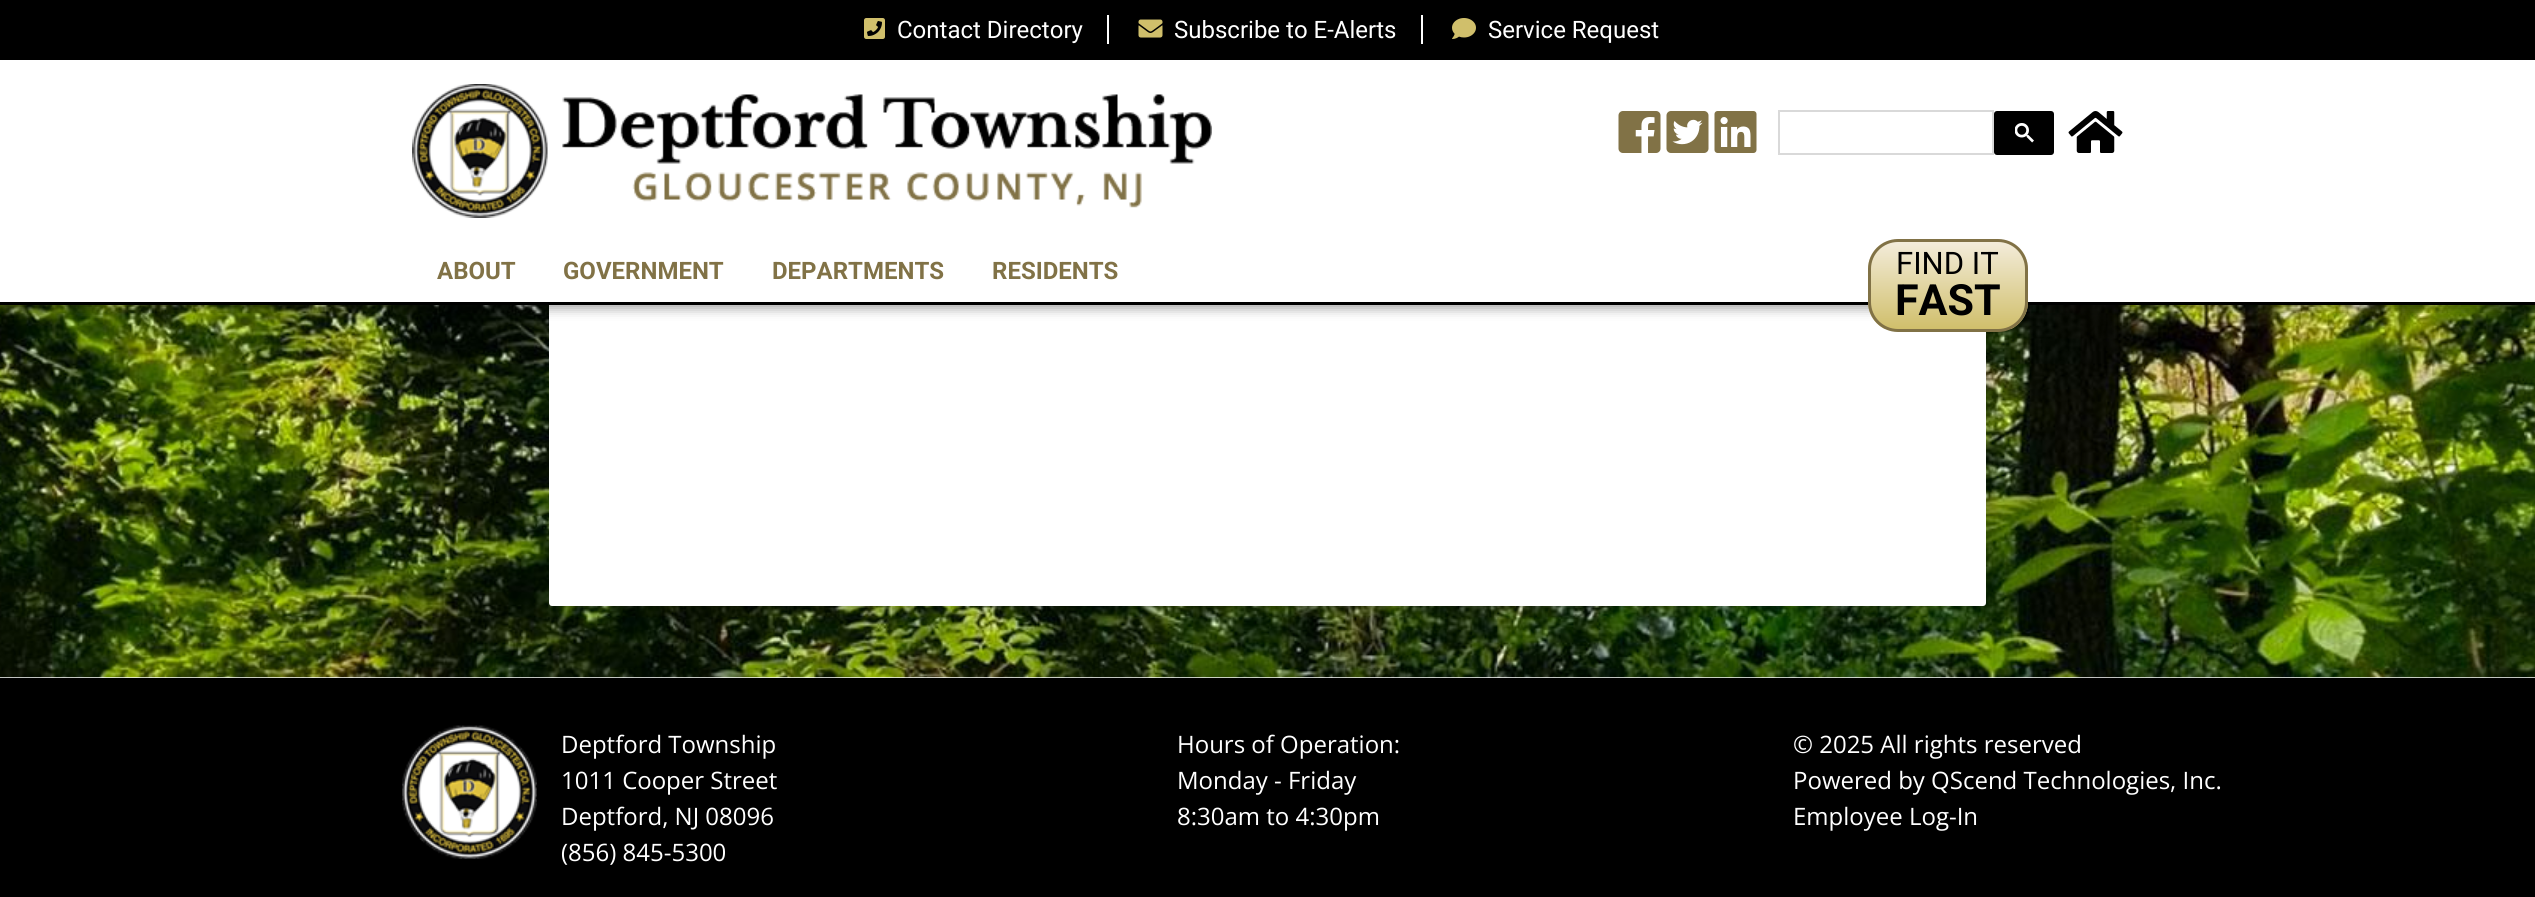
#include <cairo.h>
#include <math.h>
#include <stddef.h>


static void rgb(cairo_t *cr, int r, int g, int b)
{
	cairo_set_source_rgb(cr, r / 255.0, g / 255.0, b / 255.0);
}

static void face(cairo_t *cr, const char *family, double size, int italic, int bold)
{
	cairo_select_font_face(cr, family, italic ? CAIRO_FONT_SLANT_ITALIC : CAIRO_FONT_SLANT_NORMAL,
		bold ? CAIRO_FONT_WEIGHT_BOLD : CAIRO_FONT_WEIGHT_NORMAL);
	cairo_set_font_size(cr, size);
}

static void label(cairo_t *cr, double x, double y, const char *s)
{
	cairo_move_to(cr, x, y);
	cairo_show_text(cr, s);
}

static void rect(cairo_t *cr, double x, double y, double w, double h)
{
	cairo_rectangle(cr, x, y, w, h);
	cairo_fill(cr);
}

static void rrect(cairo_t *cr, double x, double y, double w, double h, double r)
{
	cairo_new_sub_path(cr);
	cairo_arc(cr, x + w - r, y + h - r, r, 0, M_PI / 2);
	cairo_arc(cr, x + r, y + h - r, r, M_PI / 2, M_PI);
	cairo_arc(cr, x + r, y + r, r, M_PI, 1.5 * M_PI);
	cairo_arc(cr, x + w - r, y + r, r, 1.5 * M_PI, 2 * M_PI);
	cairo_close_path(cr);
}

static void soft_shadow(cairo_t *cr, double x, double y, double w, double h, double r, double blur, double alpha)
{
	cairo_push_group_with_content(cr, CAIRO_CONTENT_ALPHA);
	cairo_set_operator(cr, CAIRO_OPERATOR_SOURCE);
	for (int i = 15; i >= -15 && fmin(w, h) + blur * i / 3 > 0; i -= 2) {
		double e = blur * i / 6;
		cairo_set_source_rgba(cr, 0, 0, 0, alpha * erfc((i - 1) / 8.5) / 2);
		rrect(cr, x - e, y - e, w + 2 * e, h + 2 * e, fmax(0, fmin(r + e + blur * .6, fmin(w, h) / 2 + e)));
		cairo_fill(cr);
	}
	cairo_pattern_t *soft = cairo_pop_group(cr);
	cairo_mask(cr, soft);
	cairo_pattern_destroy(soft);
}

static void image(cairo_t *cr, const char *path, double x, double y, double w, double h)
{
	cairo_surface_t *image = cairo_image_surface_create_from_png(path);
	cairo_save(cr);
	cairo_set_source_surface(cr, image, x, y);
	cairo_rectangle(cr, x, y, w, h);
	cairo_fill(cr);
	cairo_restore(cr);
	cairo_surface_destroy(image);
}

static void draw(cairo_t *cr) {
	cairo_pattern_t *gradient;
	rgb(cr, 255, 255, 255);
	cairo_paint(cr);
	image(cr, "image0.png", 0, 305, 2535, 373);
	rgb(cr, 0, 0, 0);
	soft_shadow(cr, 557, -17, 1437, 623, 3, 4.5, 0.16);
	rgb(cr, 255, 255, 255);
	rrect(cr, 549, -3, 1437, 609, 3);
	cairo_fill(cr);
	rgb(cr, 4, 4, 4);
	soft_shadow(cr, 3, 3, 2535, 305, 0, 6, 0.39);
	rgb(cr, 0, 0, 0);
	rect(cr, 0, 0, 2535, 60);
	rgb(cr, 255, 255, 255);
	rect(cr, 1107, 15, 2, 29);
	image(cr, "image1.png", 864, 18, 21, 21);
	face(cr, "Roboto", 24, 0, 0);
	label(cr, 897, 38, "Contact Directory");
	rect(cr, 1421, 15, 2, 29);
	image(cr, "image2.png", 1138, 19, 25, 19);
	label(cr, 1174, 38, "Subscribe to E-Alerts");
	image(cr, "image3.png", 1452, 18, 24, 21);
	label(cr, 1488, 38, "Service Request");
	rect(cr, 0, 60, 2535, 242);
	image(cr, "image4.png", 412, 84, 800, 134);
	image(cr, "image5.png", 1618, 111, 43, 42);
	image(cr, "image6.png", 1666, 111, 43, 42);
	image(cr, "image7.png", 1714, 111, 43, 42);
	cairo_rectangle(cr, 1779, 111, 214, 43);
	rgb(cr, 217, 217, 217);
	cairo_stroke(cr);
	rgb(cr, 0, 0, 0);
	rrect(cr, 1995, 112, 58, 42, 2);
	cairo_fill_preserve(cr);
	cairo_stroke(cr);
	image(cr, "image8.png", 2015, 123, 19, 20);
	image(cr, "image9.png", 2068, 111, 55, 42);
	rect(cr, 0, 302, 2535, 3);
	face(cr, "Roboto", 24, 0, 1);
	rgb(cr, 129, 114, 70);
	label(cr, 437, 279, "ABOUT");
	label(cr, 563, 279, "GOVERNMENT");
	label(cr, 772, 279, "DEPARTMENTS");
	label(cr, 992, 279, "RESIDENTS");
	cairo_save(cr);
	rrect(cr, 1868, 239, 160, 93, 30);
	cairo_clip(cr);
	gradient = cairo_pattern_create_linear(1948, 329, 1948, 242);
	cairo_pattern_add_color_stop_rgba(gradient, 0, 0.816, 0.749, 0.42, 1);
	cairo_pattern_add_color_stop_rgba(gradient, 1, 0.953, 0.925, 0.855, 1);
	cairo_set_source(cr, gradient);
	cairo_pattern_destroy(gradient);
	rect(cr, 1868, 242, 160, 87);
	cairo_restore(cr);
	rrect(cr, 1869.5, 240.5, 157, 90, 28.5);
	cairo_set_line_width(cr, 3);
	cairo_stroke(cr);
	face(cr, "Roboto", 31, 0, 0);
	rgb(cr, 0, 0, 0);
	label(cr, 1896, 274, "FIND IT");
	face(cr, "Roboto", 43, 0, 1);
	label(cr, 1895, 315, "FAST");
	rect(cr, 0, 678, 2535, 219);
	image(cr, "image10.png", 402, 725, 135, 134);
	face(cr, "Open Sans", 24, 0, 0);
	rgb(cr, 255, 255, 255);
	label(cr, 561, 753, "Deptford Township");
	label(cr, 561, 789, "1011 Cooper Street");
	label(cr, 561, 825, "Deptford, NJ 08096");
	label(cr, 561, 861, "(856) 845-5300");
	label(cr, 1177, 753, "Hours of Operation:");
	label(cr, 1177, 789, "Monday - Friday");
	label(cr, 1177, 825, "8:30am to 4:30pm");
	label(cr, 1793, 753, "© 2025 All rights reserved");
	label(cr, 1793, 789, "Powered by QScend Technologies, Inc.");
	label(cr, 1793, 825, "Employee Log-In");
}

int main(void) {
	cairo_surface_t *surface = cairo_image_surface_create(CAIRO_FORMAT_RGB24, 2535, 897);
	cairo_t *cr = cairo_create(surface);
	cairo_font_options_t *options = cairo_font_options_create();
	cairo_font_options_set_hint_metrics(options, CAIRO_HINT_METRICS_OFF);
	cairo_font_options_set_hint_style(options, CAIRO_HINT_STYLE_NONE);
	cairo_set_font_options(cr, options);
	cairo_set_miter_limit(cr, 4);
	draw(cr);
	cairo_surface_write_to_png(surface, "render.png");
	cairo_font_options_destroy(options);
	cairo_destroy(cr);
	cairo_surface_destroy(surface);
	return 0;
}
